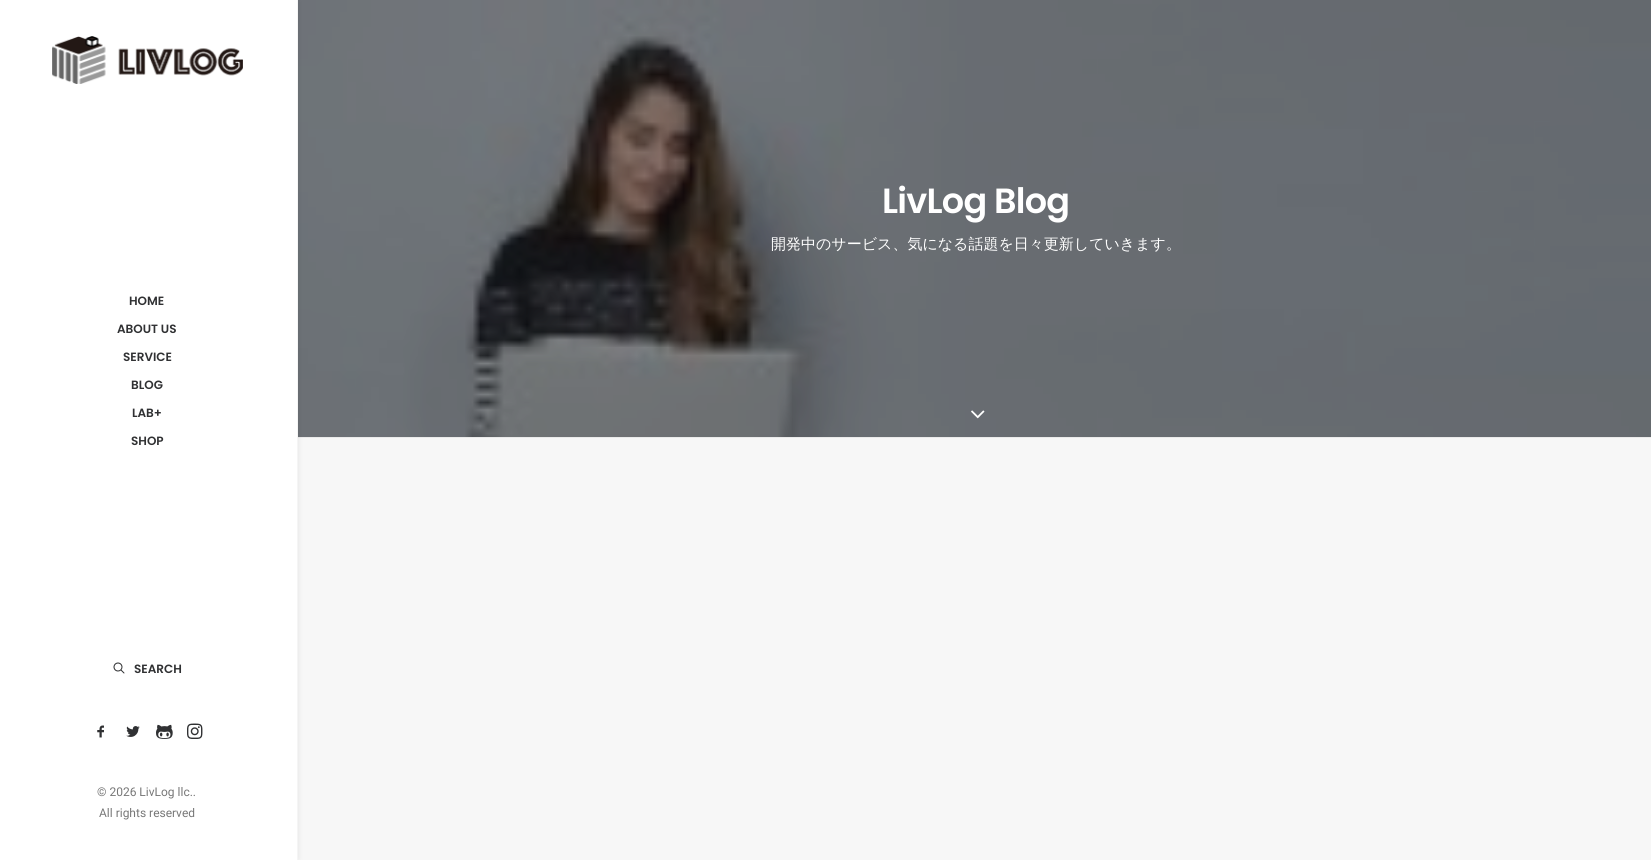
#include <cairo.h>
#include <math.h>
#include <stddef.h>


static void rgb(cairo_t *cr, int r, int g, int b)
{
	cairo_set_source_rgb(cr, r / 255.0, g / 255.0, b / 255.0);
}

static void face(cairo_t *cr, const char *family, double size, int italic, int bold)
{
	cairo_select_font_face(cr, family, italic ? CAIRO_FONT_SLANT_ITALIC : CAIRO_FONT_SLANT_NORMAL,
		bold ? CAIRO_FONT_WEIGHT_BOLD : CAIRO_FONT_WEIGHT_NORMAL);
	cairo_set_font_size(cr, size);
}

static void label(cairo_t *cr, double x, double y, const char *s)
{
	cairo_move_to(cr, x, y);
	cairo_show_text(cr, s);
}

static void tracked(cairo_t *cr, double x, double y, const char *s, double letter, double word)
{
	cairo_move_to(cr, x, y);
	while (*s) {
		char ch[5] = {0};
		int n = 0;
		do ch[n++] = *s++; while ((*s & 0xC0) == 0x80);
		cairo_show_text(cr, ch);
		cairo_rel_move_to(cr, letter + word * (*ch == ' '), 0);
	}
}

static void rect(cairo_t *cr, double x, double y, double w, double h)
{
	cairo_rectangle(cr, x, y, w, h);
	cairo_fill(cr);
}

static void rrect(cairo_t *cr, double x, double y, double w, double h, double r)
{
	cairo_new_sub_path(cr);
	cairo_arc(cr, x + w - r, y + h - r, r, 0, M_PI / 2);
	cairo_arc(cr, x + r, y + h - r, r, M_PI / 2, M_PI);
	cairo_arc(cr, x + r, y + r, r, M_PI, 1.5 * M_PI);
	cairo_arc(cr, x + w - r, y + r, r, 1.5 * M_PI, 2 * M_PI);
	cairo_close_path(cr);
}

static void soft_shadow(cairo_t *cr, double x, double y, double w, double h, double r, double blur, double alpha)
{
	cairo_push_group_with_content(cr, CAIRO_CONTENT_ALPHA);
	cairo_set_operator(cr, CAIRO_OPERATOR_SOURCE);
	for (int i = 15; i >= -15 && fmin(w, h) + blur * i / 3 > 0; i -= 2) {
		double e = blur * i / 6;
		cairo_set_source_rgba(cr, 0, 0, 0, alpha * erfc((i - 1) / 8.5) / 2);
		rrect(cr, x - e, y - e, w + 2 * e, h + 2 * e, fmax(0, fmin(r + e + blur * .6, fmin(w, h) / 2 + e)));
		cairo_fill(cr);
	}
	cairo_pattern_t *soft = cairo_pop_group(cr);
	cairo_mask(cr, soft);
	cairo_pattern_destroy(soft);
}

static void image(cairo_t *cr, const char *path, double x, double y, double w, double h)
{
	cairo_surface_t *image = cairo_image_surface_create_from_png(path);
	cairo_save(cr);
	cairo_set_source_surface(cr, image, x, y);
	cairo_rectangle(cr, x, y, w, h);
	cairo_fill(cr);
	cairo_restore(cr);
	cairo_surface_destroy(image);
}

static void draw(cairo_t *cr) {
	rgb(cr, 234, 234, 234);
	cairo_paint(cr);
	image(cr, "image0.png", 298, 0, 1353, 437);
	face(cr, "Poppins SemiBold", 35, 0, 0);
	rgb(cr, 255, 255, 255);
	tracked(cr, 882, 213, "LivLog Blog", -0.75, 0);
	face(cr, "WenQuanYi Zen Hei Medium", 15, 0, 0);
	label(cr, 771, 249, "開発中のサービス、気になる話題を日々更新していきます。");
	image(cr, "image1.png", 971, 410, 14, 9);
	rgb(cr, 247, 247, 247);
	rect(cr, 298, 438, 1353, 422);
	rgb(cr, 0, 0, 0);
	soft_shadow(cr, -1, 1, 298, 858, 0, 3.5, 0.1);
	rgb(cr, 255, 255, 255);
	rect(cr, 0, 0, 297, 860);
	rgb(cr, 245, 245, 245);
	rect(cr, 297, 0, 1, 860);
	image(cr, "image2.png", 52, 36, 191, 48);
	face(cr, "Poppins SemiBold", 12, 0, 0);
	rgb(cr, 48, 49, 51);
	label(cr, 129, 305, "HOME");
	label(cr, 117, 333, "ABOUT US");
	label(cr, 123, 361, "SERVICE");
	label(cr, 131, 389, "BLOG");
	label(cr, 132, 417, "LAB+");
	label(cr, 131, 445, "SHOP");
	image(cr, "image3.png", 113, 662, 12, 12);
	label(cr, 134, 673, "SEARCH");
	image(cr, "image4.png", 97, 725, 7, 13);
	image(cr, "image5.png", 126, 726, 14, 11);
	image(cr, "image6.png", 156, 724, 17, 15);
	image(cr, "image7.png", 187, 723, 16, 16);
	face(cr, "Roboto", 12, 0, 0);
	rgb(cr, 119, 119, 119);
	label(cr, 97, 796, "© 2026 LivLog llc..");
	label(cr, 99, 817, "All rights reserved");
}

int main(void) {
	cairo_surface_t *surface = cairo_image_surface_create(CAIRO_FORMAT_RGB24, 1651, 860);
	cairo_t *cr = cairo_create(surface);
	cairo_font_options_t *options = cairo_font_options_create();
	cairo_font_options_set_hint_metrics(options, CAIRO_HINT_METRICS_OFF);
	cairo_font_options_set_hint_style(options, CAIRO_HINT_STYLE_NONE);
	cairo_set_font_options(cr, options);
	cairo_set_miter_limit(cr, 4);
	draw(cr);
	cairo_surface_write_to_png(surface, "render.png");
	cairo_font_options_destroy(options);
	cairo_destroy(cr);
	cairo_surface_destroy(surface);
	return 0;
}
